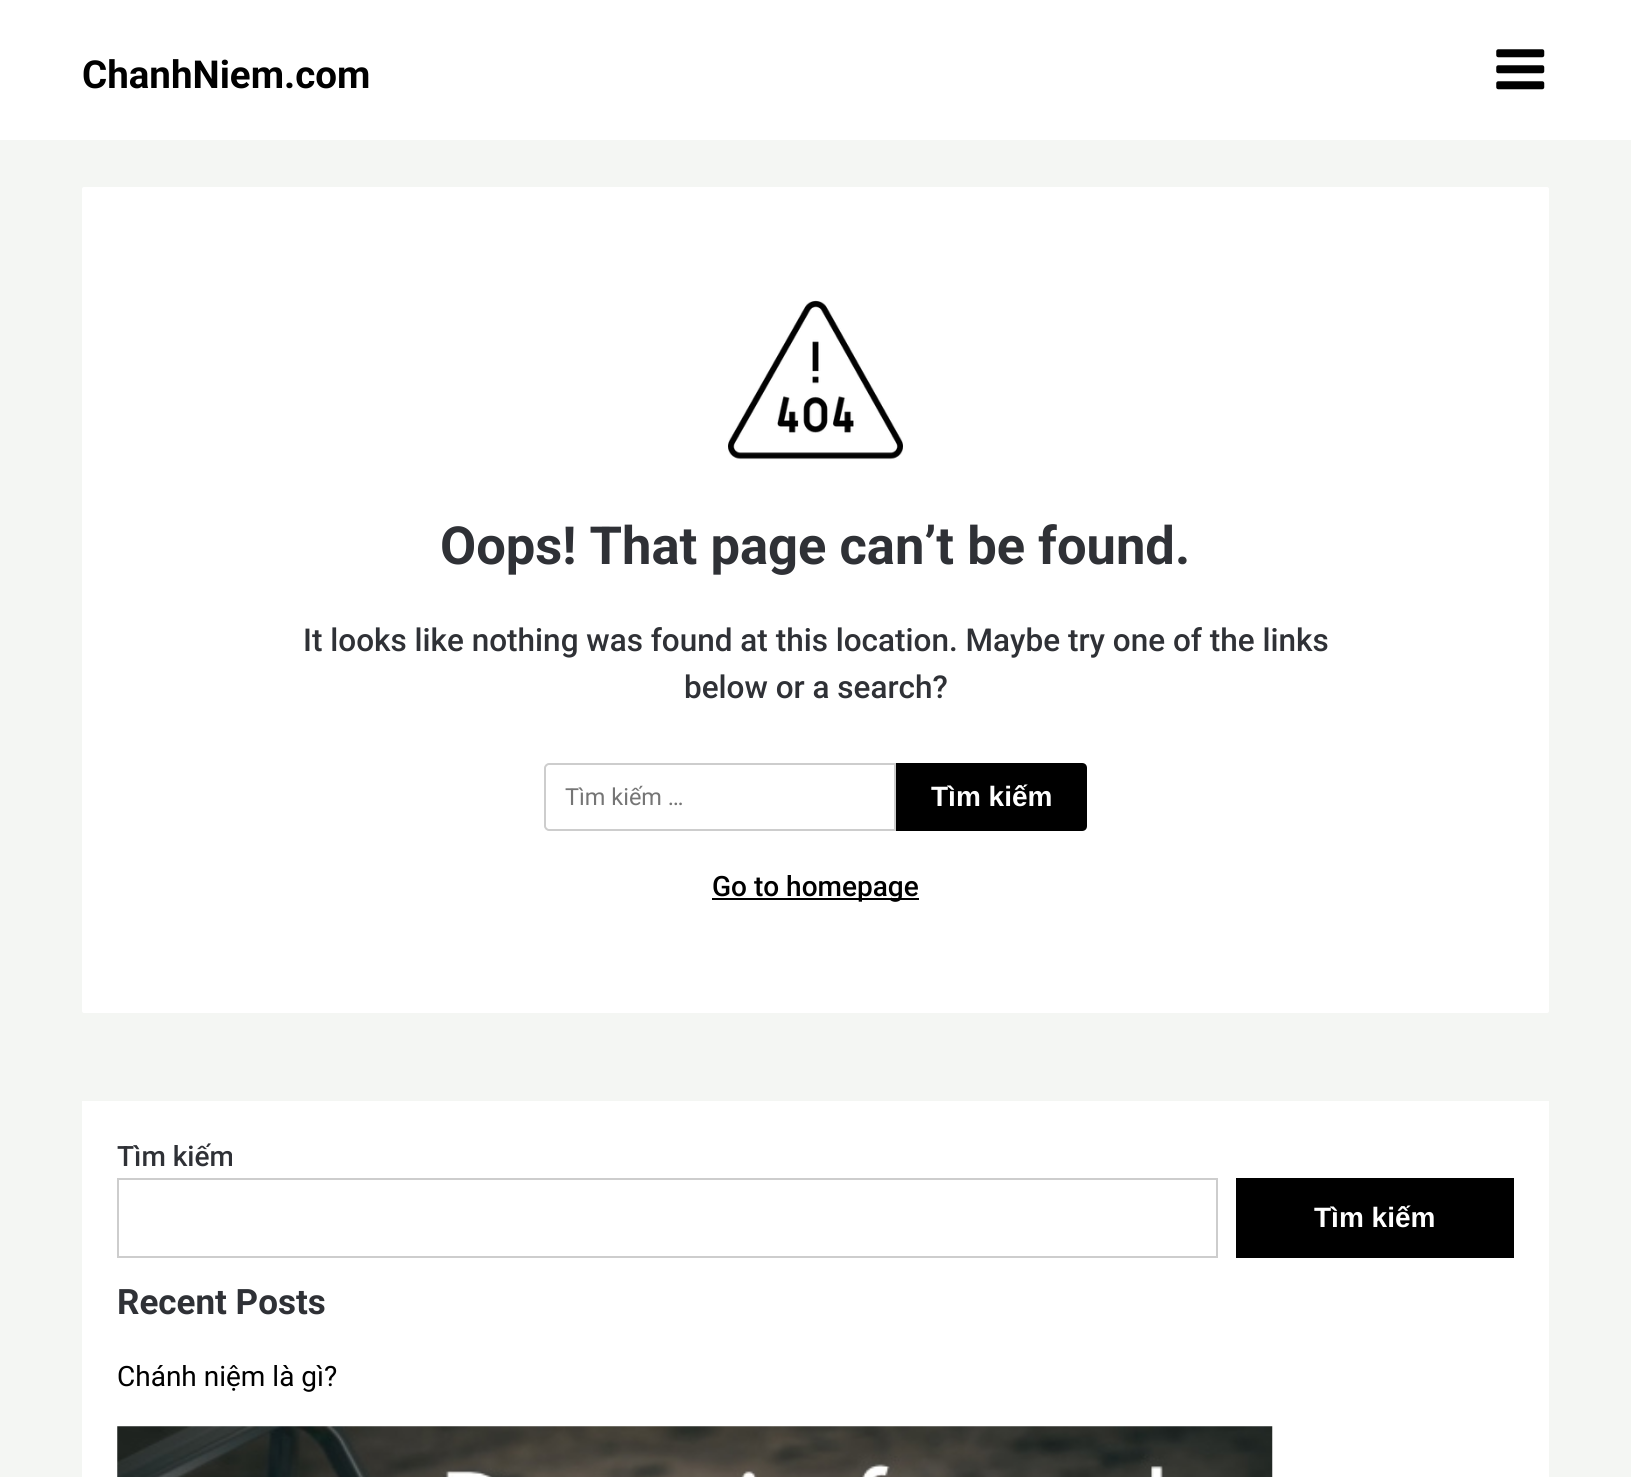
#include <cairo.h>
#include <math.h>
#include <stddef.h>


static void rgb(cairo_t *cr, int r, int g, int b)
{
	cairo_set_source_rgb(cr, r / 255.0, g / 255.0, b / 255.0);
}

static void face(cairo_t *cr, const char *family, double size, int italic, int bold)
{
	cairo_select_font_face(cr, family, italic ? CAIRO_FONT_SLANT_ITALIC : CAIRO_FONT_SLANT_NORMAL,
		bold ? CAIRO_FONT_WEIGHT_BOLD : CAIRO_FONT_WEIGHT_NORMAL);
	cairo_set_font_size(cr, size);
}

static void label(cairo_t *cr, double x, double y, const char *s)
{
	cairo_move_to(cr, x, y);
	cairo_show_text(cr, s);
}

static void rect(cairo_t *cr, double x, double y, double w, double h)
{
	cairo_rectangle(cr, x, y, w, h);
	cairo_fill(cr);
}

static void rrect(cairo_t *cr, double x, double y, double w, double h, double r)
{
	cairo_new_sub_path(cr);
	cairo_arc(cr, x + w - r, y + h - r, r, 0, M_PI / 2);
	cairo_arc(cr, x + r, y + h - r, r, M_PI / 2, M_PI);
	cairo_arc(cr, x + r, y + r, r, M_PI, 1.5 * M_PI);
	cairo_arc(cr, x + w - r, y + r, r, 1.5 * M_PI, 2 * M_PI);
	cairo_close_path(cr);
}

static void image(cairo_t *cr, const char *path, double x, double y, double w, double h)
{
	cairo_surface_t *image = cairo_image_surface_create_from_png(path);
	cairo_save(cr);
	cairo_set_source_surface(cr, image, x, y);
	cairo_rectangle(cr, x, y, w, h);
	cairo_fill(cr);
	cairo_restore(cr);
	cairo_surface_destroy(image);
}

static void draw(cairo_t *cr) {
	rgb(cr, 244, 246, 243);
	cairo_paint(cr);
	rgb(cr, 255, 255, 255);
	rect(cr, 0, 0, 1631, 140);
	face(cr, "Roboto", 38.5, 0, 1);
	rgb(cr, 0, 0, 0);
	label(cr, 82, 88, "ChanhNiem.com");
	image(cr, "image0.png", 1496, 49, 49, 41);
	rgb(cr, 255, 255, 255);
	rrect(cr, 82, 187, 1467, 826, 2);
	cairo_fill(cr);
	image(cr, "image1.png", 728, 300, 175, 160);
	face(cr, "Roboto", 52.5, 0, 1);
	rgb(cr, 47, 49, 54);
	label(cr, 440, 564, "Oops! That page can’t be found.");
	face(cr, "Roboto Medium", 31.5, 0, 0);
	label(cr, 303, 651, "It looks like nothing was found at this location. Maybe try one of the links");
	label(cr, 684, 698, "below or a search?");
	cairo_new_path(cr);
	cairo_move_to(cr, 549, 764);
	cairo_line_to(cr, 895, 764);
	cairo_line_to(cr, 895, 830);
	cairo_line_to(cr, 549, 830);
	cairo_curve_to(cr, 547, 830, 545, 828, 545, 826);
	cairo_line_to(cr, 545, 768);
	cairo_curve_to(cr, 545, 766, 547, 764, 549, 764);
	cairo_close_path(cr);
	rgb(cr, 205, 205, 205);
	cairo_stroke(cr);
	face(cr, "Roboto", 23.5, 0, 0);
	rgb(cr, 117, 117, 117);
	label(cr, 565, 805, "Tìm kiếm …");
	rgb(cr, 0, 0, 0);
	cairo_new_path(cr);
	cairo_move_to(cr, 896, 763);
	cairo_line_to(cr, 1082, 763);
	cairo_curve_to(cr, 1085, 763, 1087, 765, 1087, 768);
	cairo_line_to(cr, 1087, 826);
	cairo_curve_to(cr, 1087, 829, 1085, 831, 1082, 831);
	cairo_line_to(cr, 896, 831);
	cairo_close_path(cr);
	cairo_fill(cr);
	face(cr, "Liberation Sans", 28, 0, 1);
	rgb(cr, 255, 255, 255);
	label(cr, 931, 806, "Tìm kiếm");
	rgb(cr, 0, 0, 0);
	rect(cr, 712, 898, 207, 2);
	face(cr, "Roboto Medium", 28, 0, 0);
	label(cr, 712, 896, "Go to homepage");
	rgb(cr, 255, 255, 255);
	rect(cr, 82, 1101, 1467, 376);
	rgb(cr, 47, 49, 54);
	label(cr, 117, 1166, "Tìm kiếm");
	cairo_rectangle(cr, 118, 1179, 1099, 78);
	rgb(cr, 205, 205, 205);
	cairo_stroke(cr);
	rgb(cr, 0, 0, 0);
	rect(cr, 1236, 1178, 278, 80);
	face(cr, "Liberation Sans", 28, 0, 1);
	rgb(cr, 255, 255, 255);
	label(cr, 1314, 1227, "Tìm kiếm");
	face(cr, "Roboto", 35, 0, 1);
	rgb(cr, 47, 49, 54);
	label(cr, 117, 1314, "Recent Posts");
	face(cr, "Roboto", 28, 0, 0);
	rgb(cr, 0, 0, 0);
	label(cr, 117, 1386, "Chánh niệm là gì?");
	image(cr, "image2.png", 117, 1426, 1156, 51);
}

int main(void) {
	cairo_surface_t *surface = cairo_image_surface_create(CAIRO_FORMAT_RGB24, 1631, 1477);
	cairo_t *cr = cairo_create(surface);
	cairo_font_options_t *options = cairo_font_options_create();
	cairo_font_options_set_hint_metrics(options, CAIRO_HINT_METRICS_OFF);
	cairo_font_options_set_hint_style(options, CAIRO_HINT_STYLE_NONE);
	cairo_set_font_options(cr, options);
	cairo_set_miter_limit(cr, 4);
	draw(cr);
	cairo_surface_write_to_png(surface, "render.png");
	cairo_font_options_destroy(options);
	cairo_destroy(cr);
	cairo_surface_destroy(surface);
	return 0;
}
